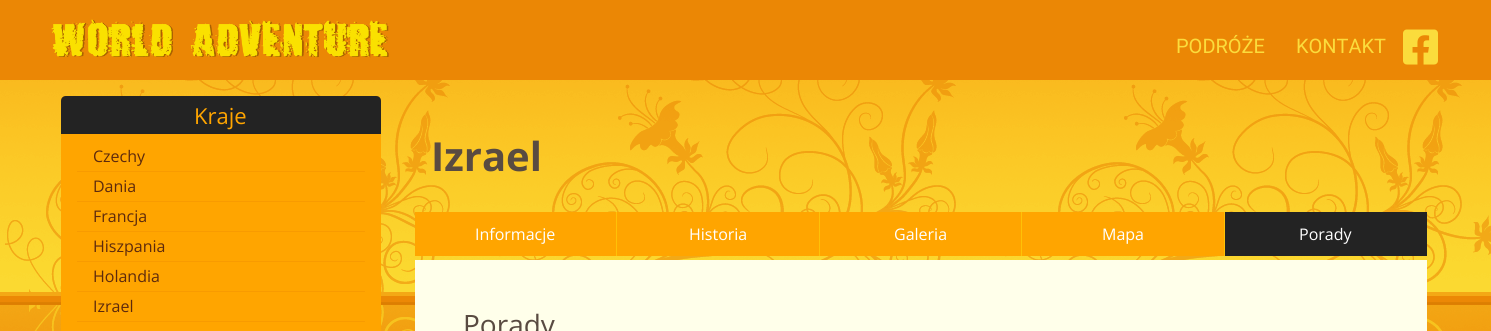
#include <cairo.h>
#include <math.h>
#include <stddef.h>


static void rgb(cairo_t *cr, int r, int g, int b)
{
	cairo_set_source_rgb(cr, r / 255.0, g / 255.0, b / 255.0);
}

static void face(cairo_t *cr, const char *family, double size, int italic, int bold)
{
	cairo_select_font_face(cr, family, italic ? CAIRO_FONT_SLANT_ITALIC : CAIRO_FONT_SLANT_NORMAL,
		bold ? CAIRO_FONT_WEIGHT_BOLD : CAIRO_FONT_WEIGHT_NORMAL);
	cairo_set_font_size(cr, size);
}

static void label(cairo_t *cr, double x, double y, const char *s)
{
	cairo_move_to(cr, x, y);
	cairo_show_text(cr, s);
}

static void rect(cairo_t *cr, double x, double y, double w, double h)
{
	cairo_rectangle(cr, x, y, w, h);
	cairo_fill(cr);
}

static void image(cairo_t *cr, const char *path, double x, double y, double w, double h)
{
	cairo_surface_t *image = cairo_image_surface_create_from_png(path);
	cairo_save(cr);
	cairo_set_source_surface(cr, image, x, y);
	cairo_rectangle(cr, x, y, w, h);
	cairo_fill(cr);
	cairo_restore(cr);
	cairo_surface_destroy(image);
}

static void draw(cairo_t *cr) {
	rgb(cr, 255, 255, 255);
	cairo_paint(cr);
	image(cr, "image0.png", 0, 80, 1491, 251);
	rgb(cr, 235, 135, 5);
	rect(cr, 0, 0, 1491, 80);
	image(cr, "image1.png", 51, 19, 338, 39);
	face(cr, "Roboto", 20, 0, 0);
	rgb(cr, 251, 220, 60);
	label(cr, 1176, 53, "PODRÓŻE");
	label(cr, 1296, 53, "KONTAKT");
	image(cr, "image2.png", 1403, 29, 35, 36);
	rgb(cr, 255, 165, 0);
	cairo_new_path(cr);
	cairo_move_to(cr, 66, 96);
	cairo_line_to(cr, 376, 96);
	cairo_curve_to(cr, 379, 96, 381, 98, 381, 101);
	cairo_line_to(cr, 381, 331);
	cairo_line_to(cr, 61, 331);
	cairo_line_to(cr, 61, 101);
	cairo_curve_to(cr, 61, 98, 63, 96, 66, 96);
	cairo_close_path(cr);
	cairo_fill(cr);
	rgb(cr, 35, 35, 35);
	cairo_new_path(cr);
	cairo_move_to(cr, 66, 96);
	cairo_line_to(cr, 376, 96);
	cairo_curve_to(cr, 379, 96, 381, 98, 381, 101);
	cairo_line_to(cr, 381, 134);
	cairo_line_to(cr, 61, 134);
	cairo_line_to(cr, 61, 101);
	cairo_curve_to(cr, 61, 98, 63, 96, 66, 96);
	cairo_close_path(cr);
	cairo_fill(cr);
	face(cr, "Open Sans", 22, 0, 0);
	rgb(cr, 255, 165, 0);
	label(cr, 194, 124, "Kraje");
	rgb(cr, 248, 155, 1);
	rect(cr, 77, 171, 288, 1);
	face(cr, "Open Sans", 16, 0, 0);
	rgb(cr, 93, 42, 13);
	label(cr, 93, 162, "Czechy");
	rgb(cr, 248, 155, 1);
	rect(cr, 77, 201, 288, 1);
	rgb(cr, 93, 42, 13);
	label(cr, 93, 192, "Dania");
	rgb(cr, 248, 155, 1);
	rect(cr, 77, 231, 288, 1);
	rgb(cr, 93, 42, 13);
	label(cr, 93, 222, "Francja");
	rgb(cr, 248, 155, 1);
	rect(cr, 77, 261, 288, 1);
	rgb(cr, 93, 42, 13);
	label(cr, 93, 252, "Hiszpania");
	rgb(cr, 248, 155, 1);
	rect(cr, 77, 291, 288, 1);
	rgb(cr, 93, 42, 13);
	label(cr, 93, 282, "Holandia");
	rgb(cr, 248, 155, 1);
	rect(cr, 77, 321, 288, 1);
	rgb(cr, 93, 42, 13);
	label(cr, 93, 312, "Izrael");
	face(cr, "Open Sans", 40, 0, 1);
	rgb(cr, 89, 75, 65);
	label(cr, 431, 171, "Izrael");
	rgb(cr, 255, 165, 0);
	rect(cr, 415, 212, 809, 44);
	rgb(cr, 255, 193, 7);
	rect(cr, 616, 212, 1, 44);
	face(cr, "Open Sans", 16, 0, 0);
	rgb(cr, 255, 255, 255);
	label(cr, 475, 240, "Informacje");
	rgb(cr, 255, 193, 7);
	rect(cr, 819, 212, 1, 44);
	rgb(cr, 255, 255, 255);
	label(cr, 689, 240, "Historia");
	rgb(cr, 255, 193, 7);
	rect(cr, 1021, 212, 1, 44);
	rgb(cr, 255, 255, 255);
	label(cr, 894, 240, "Galeria");
	rgb(cr, 255, 193, 7);
	rect(cr, 1224, 212, 1, 44);
	rgb(cr, 255, 255, 255);
	label(cr, 1102, 240, "Mapa");
	rgb(cr, 35, 35, 35);
	rect(cr, 1225, 212, 202, 44);
	rgb(cr, 255, 255, 255);
	label(cr, 1299, 240, "Porady");
	rgb(cr, 255, 255, 234);
	rect(cr, 415, 260, 1012, 71);
	face(cr, "Open Sans", 28, 0, 0);
	rgb(cr, 89, 75, 65);
	label(cr, 463, 335, "Porady");
}

int main(void) {
	cairo_surface_t *surface = cairo_image_surface_create(CAIRO_FORMAT_RGB24, 1491, 331);
	cairo_t *cr = cairo_create(surface);
	cairo_font_options_t *options = cairo_font_options_create();
	cairo_font_options_set_hint_metrics(options, CAIRO_HINT_METRICS_OFF);
	cairo_font_options_set_hint_style(options, CAIRO_HINT_STYLE_NONE);
	cairo_set_font_options(cr, options);
	cairo_set_miter_limit(cr, 4);
	draw(cr);
	cairo_surface_write_to_png(surface, "render.png");
	cairo_font_options_destroy(options);
	cairo_destroy(cr);
	cairo_surface_destroy(surface);
	return 0;
}
